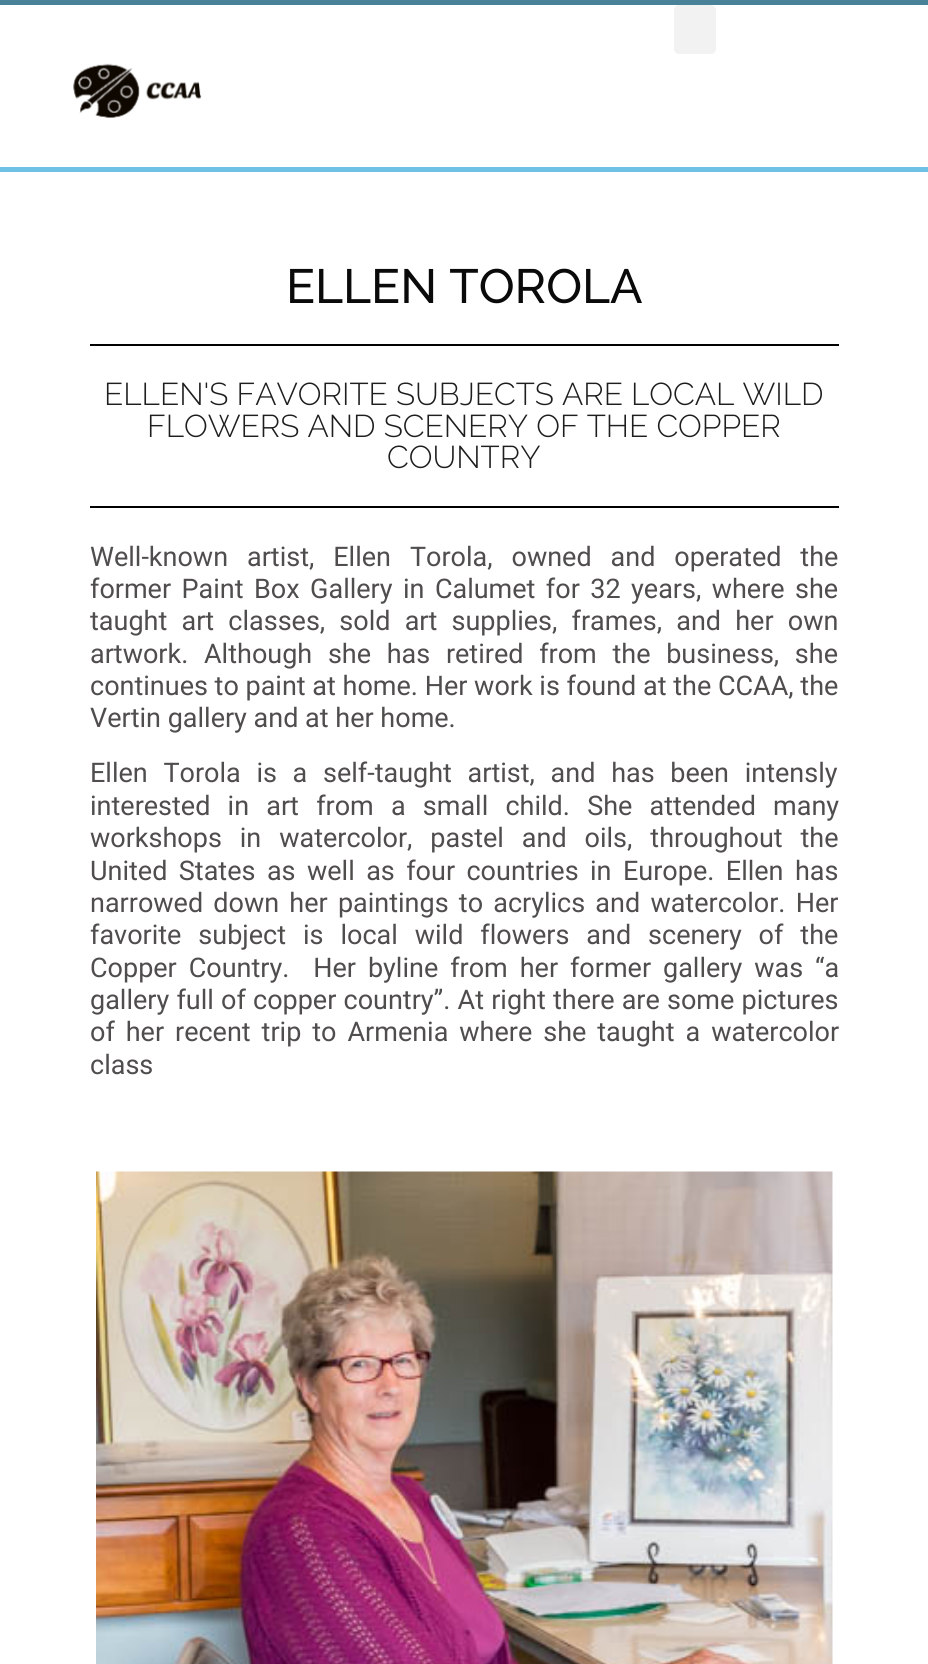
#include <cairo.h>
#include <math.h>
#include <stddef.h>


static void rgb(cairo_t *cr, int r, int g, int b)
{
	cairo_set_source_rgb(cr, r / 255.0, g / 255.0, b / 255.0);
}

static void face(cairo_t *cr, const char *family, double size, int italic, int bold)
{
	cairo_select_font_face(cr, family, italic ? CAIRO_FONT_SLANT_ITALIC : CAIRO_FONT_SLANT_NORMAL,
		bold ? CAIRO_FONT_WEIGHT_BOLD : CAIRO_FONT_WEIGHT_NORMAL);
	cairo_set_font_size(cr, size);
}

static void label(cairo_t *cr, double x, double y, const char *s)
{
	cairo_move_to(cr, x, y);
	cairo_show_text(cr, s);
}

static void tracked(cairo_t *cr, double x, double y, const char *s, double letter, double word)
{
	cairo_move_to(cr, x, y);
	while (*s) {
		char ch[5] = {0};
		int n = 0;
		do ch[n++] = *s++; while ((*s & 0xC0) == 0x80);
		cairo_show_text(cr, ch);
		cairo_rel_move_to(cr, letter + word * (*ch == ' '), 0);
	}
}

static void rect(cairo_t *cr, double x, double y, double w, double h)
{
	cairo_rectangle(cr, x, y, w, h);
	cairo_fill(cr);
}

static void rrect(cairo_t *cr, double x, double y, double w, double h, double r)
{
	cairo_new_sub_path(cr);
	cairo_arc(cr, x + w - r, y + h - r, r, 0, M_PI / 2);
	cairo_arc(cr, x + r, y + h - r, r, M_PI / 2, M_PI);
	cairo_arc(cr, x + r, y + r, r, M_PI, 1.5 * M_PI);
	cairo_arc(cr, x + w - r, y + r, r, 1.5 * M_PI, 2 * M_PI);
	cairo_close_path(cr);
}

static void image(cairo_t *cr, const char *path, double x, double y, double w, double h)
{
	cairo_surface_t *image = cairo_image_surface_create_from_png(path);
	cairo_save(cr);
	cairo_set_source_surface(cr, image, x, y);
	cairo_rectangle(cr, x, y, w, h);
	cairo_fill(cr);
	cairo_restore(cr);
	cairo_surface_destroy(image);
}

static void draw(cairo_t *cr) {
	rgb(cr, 255, 255, 255);
	cairo_paint(cr);
	rgb(cr, 73, 129, 152);
	rect(cr, 0, 0, 928, 5);
	rgb(cr, 110, 193, 228);
	rect(cr, 0, 167, 928, 5);
	rgb(cr, 242, 242, 242);
	rrect(cr, 674, 5, 42, 49, 5);
	cairo_fill(cr);
	image(cr, "image0.png", 73, 63, 129, 55);
	face(cr, "Raleway Medium", 48, 0, 0);
	rgb(cr, 10, 10, 10);
	label(cr, 286, 303, "ELLEN TOROLA");
	rgb(cr, 0, 0, 0);
	rect(cr, 90, 344, 749, 2);
	face(cr, "Raleway Light", 31.5, 0, 0);
	rgb(cr, 30, 30, 30);
	label(cr, 104, 405, "ELLEN'S FAVORITE SUBJECTS ARE LOCAL WILD");
	label(cr, 147, 437, "FLOWERS AND SCENERY OF THE COPPER");
	label(cr, 387, 468, "COUNTRY");
	rgb(cr, 0, 0, 0);
	rect(cr, 90, 506, 749, 2);
	face(cr, "Roboto", 27, 0, 0);
	rgb(cr, 80, 77, 77);
	tracked(cr, 90, 566, "Well-known artist, Ellen Torola, owned and operated the", 0, 12.25);
	tracked(cr, 90, 598, "former Paint Box Gallery in Calumet for 32 years, where she", 0, 3.75);
	tracked(cr, 90, 630, "taught art classes, sold art supplies, frames, and her own", 0, 7.5);
	tracked(cr, 90, 663, "artwork. Although she has retired from the business, she", 0, 9);
	label(cr, 90, 695, "continues to paint at home. Her work is found at the CCAA, the");
	label(cr, 90, 727, "Vertin gallery and at her home.");
	tracked(cr, 90, 782, "Ellen Torola is a self-taught artist, and has been intensly", 0, 9);
	tracked(cr, 90, 815, "interested in art from a small child. She attended many", 0, 10.5);
	tracked(cr, 90, 847, "workshops in watercolor, pastel and oils, throughout the", 0, 11.25);
	tracked(cr, 90, 880, "United States as well as four countries in Europe. Ellen has", 0, 4.75);
	tracked(cr, 90, 912, "narrowed down her paintings to acrylics and watercolor. Her", 0, 3.5);
	tracked(cr, 90, 944, "favorite subject is local wild flowers and scenery of the", 0, 10.25);
	tracked(cr, 90, 977, "Copper Country.  Her byline from her former gallery was “a", 0, 5.25);
	tracked(cr, 90, 1009, "gallery full of copper country”. At right there are some pictures", 0, 0.5);
	tracked(cr, 90, 1041, "of her recent trip to Armenia where she taught a watercolor", 0, 4.25);
	label(cr, 90, 1074, "class");
	image(cr, "image1.png", 96, 1171, 737, 493);
}

int main(void) {
	cairo_surface_t *surface = cairo_image_surface_create(CAIRO_FORMAT_RGB24, 928, 1664);
	cairo_t *cr = cairo_create(surface);
	cairo_font_options_t *options = cairo_font_options_create();
	cairo_font_options_set_hint_metrics(options, CAIRO_HINT_METRICS_OFF);
	cairo_font_options_set_hint_style(options, CAIRO_HINT_STYLE_NONE);
	cairo_set_font_options(cr, options);
	cairo_set_miter_limit(cr, 4);
	draw(cr);
	cairo_surface_write_to_png(surface, "render.png");
	cairo_font_options_destroy(options);
	cairo_destroy(cr);
	cairo_surface_destroy(surface);
	return 0;
}
